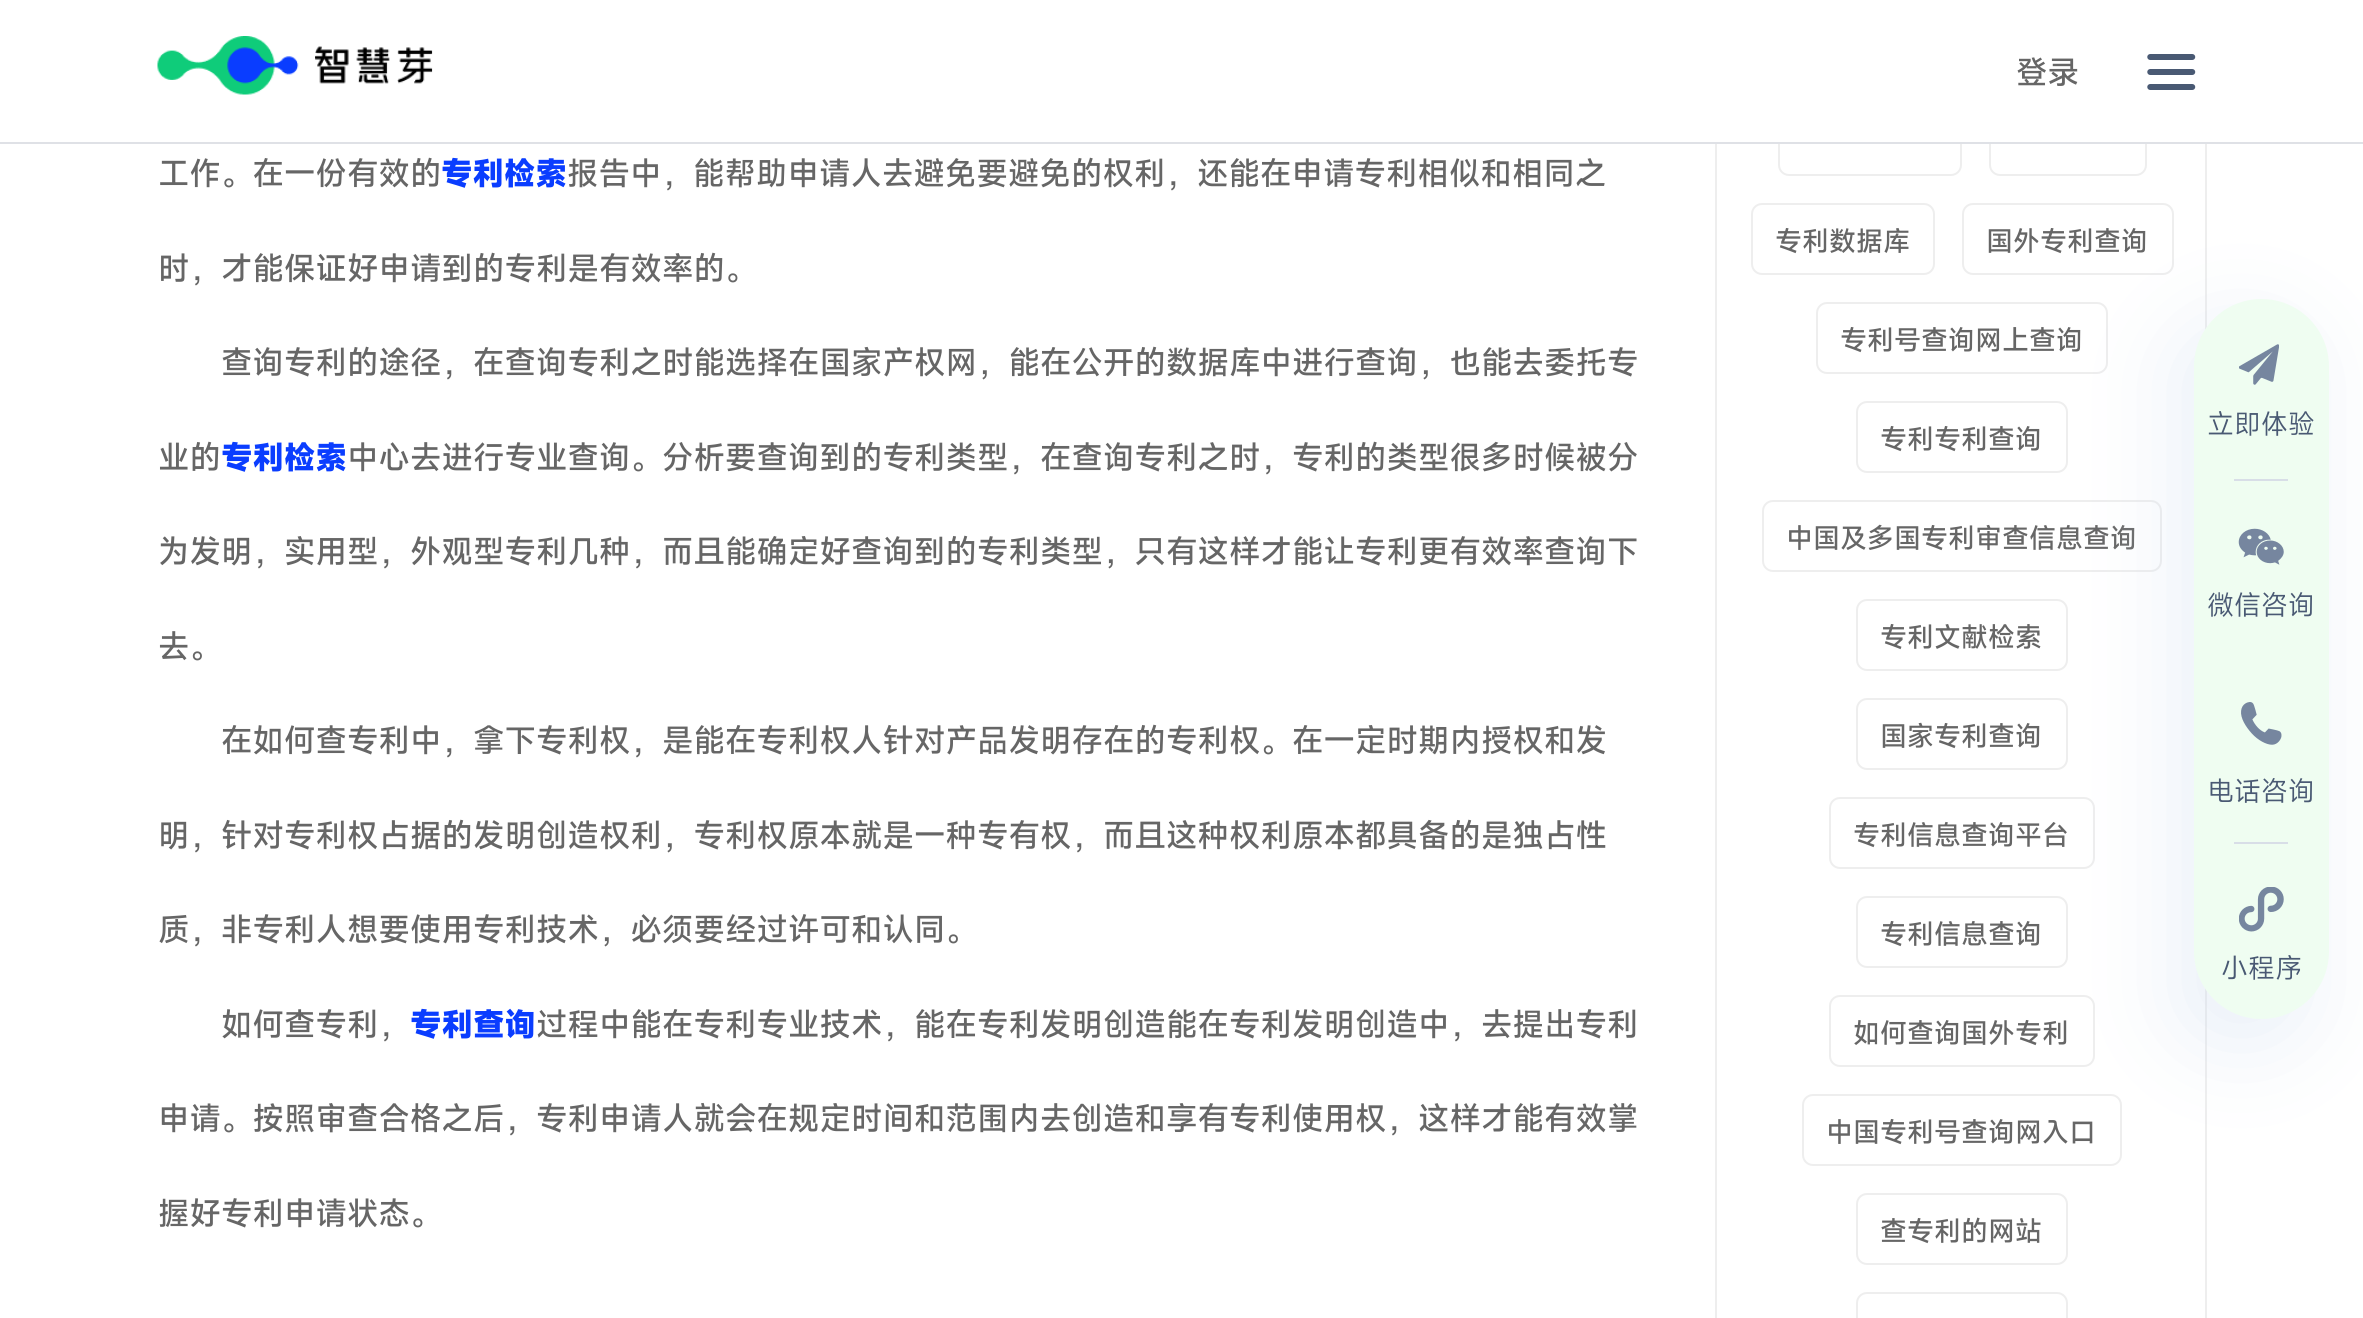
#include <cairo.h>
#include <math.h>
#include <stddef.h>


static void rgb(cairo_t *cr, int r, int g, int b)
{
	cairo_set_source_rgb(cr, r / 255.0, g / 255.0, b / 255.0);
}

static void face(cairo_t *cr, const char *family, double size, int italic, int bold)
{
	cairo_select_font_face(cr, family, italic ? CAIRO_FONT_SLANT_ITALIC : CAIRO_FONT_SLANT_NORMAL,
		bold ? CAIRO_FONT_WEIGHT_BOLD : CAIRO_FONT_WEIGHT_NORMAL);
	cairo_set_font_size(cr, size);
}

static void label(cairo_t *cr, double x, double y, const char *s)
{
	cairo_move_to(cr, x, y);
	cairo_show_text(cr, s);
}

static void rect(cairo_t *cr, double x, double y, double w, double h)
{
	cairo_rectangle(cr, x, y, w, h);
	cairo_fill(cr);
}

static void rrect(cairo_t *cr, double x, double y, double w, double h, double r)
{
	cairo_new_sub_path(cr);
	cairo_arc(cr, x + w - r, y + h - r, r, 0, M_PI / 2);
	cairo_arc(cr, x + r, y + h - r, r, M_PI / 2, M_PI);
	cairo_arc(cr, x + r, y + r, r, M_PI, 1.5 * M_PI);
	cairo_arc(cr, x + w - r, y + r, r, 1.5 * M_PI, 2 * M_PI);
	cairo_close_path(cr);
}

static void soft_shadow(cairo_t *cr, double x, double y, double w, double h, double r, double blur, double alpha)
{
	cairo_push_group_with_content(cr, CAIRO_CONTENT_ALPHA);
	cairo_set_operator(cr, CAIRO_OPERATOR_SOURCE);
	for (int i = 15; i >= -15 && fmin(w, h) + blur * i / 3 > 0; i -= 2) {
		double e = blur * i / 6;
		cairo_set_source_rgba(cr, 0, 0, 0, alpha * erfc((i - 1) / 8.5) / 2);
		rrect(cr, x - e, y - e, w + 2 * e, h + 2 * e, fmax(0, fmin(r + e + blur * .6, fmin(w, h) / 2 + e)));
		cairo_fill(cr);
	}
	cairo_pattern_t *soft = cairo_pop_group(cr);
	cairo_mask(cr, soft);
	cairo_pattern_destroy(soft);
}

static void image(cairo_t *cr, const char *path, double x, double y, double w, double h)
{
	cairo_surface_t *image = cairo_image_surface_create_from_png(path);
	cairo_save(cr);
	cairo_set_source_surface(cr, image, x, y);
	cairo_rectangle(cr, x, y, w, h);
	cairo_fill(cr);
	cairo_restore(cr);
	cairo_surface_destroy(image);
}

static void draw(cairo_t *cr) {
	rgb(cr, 255, 255, 255);
	cairo_paint(cr);
	cairo_rectangle(cr, 1716, -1, 490, 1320);
	rgb(cr, 238, 238, 238);
	cairo_stroke(cr);
	rrect(cr, 1779, 105, 182, 70, 10);
	cairo_stroke(cr);
	rrect(cr, 1990, 105, 156, 70, 10);
	cairo_stroke(cr);
	rgb(cr, 255, 255, 255);
	rect(cr, 1715, 0, 492, 142);
	rgb(cr, 223, 225, 230);
	rect(cr, 0, 142, 2363, 2);
	image(cr, "image0.png", 157, 36, 276, 59);
	face(cr, "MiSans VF", 31.5, 0, 0);
	rgb(cr, 102, 102, 102);
	label(cr, 2016, 84, "登录");
	image(cr, "image1.png", 2147, 54, 49, 36);
	label(cr, 158, 185, "工作。在一份有效的");
	face(cr, "MiSans VF", 31.5, 0, 1);
	rgb(cr, 10, 61, 255);
	label(cr, 441, 185, "专利检索");
	face(cr, "MiSans VF", 31.5, 0, 0);
	rgb(cr, 102, 102, 102);
	label(cr, 567, 185, "报告中，能帮助申请人去避免要避免的权利，还能在申请专利相似和相同之");
	label(cr, 158, 280, "时，才能保证好申请到的专利是有效率的。");
	label(cr, 221, 374, "查询专利的途径，在查询专利之时能选择在国家产权网，能在公开的数据库中进行查询，也能去委托专");
	label(cr, 158, 469, "业的");
	face(cr, "MiSans VF", 31.5, 0, 1);
	rgb(cr, 10, 61, 255);
	label(cr, 221, 469, "专利检索");
	face(cr, "MiSans VF", 31.5, 0, 0);
	rgb(cr, 102, 102, 102);
	label(cr, 347, 469, "中心去进行专业查询。分析要查询到的专利类型，在查询专利之时，专利的类型很多时候被分");
	label(cr, 158, 563, "为发明，实用型，外观型专利几种，而且能确定好查询到的专利类型，只有这样才能让专利更有效率查询下");
	label(cr, 158, 658, "去。");
	label(cr, 221, 752, "在如何查专利中，拿下专利权，是能在专利权人针对产品发明存在的专利权。在一定时期内授权和发");
	label(cr, 158, 847, "明，针对专利权占据的发明创造权利，专利权原本就是一种专有权，而且这种权利原本都具备的是独占性");
	label(cr, 158, 941, "质，非专利人想要使用专利技术，必须要经过许可和认同。");
	label(cr, 221, 1036, "如何查专利，");
	face(cr, "MiSans VF", 31.5, 0, 1);
	rgb(cr, 10, 61, 255);
	label(cr, 410, 1036, "专利查询");
	face(cr, "MiSans VF", 31.5, 0, 0);
	rgb(cr, 102, 102, 102);
	label(cr, 536, 1036, "过程中能在专利专业技术，能在专利发明创造能在专利发明创造中，去提出专利");
	label(cr, 158, 1130, "申请。按照审查合格之后，专利申请人就会在规定时间和范围内去创造和享有专利使用权，这样才能有效掌");
	label(cr, 158, 1225, "握好专利申请状态。");
	rrect(cr, 1752, 204, 182, 70, 10);
	rgb(cr, 238, 238, 238);
	cairo_stroke(cr);
	face(cr, "MiSans VF", 27, 0, 0);
	rgb(cr, 102, 102, 102);
	label(cr, 1775, 251, "专利数据库");
	rrect(cr, 1963, 204, 210, 70, 10);
	rgb(cr, 238, 238, 238);
	cairo_stroke(cr);
	rgb(cr, 102, 102, 102);
	label(cr, 1986, 251, "国外专利查询");
	rrect(cr, 1817, 303, 290, 70, 10);
	rgb(cr, 238, 238, 238);
	cairo_stroke(cr);
	rgb(cr, 102, 102, 102);
	label(cr, 1840, 350, "专利号查询网上查询");
	rrect(cr, 1857, 402, 210, 70, 10);
	rgb(cr, 238, 238, 238);
	cairo_stroke(cr);
	rgb(cr, 102, 102, 102);
	label(cr, 1880, 449, "专利专利查询");
	rrect(cr, 1763, 501, 398, 70, 10);
	rgb(cr, 238, 238, 238);
	cairo_stroke(cr);
	rgb(cr, 102, 102, 102);
	label(cr, 1786, 548, "中国及多国专利审查信息查询");
	rrect(cr, 1857, 600, 210, 70, 10);
	rgb(cr, 238, 238, 238);
	cairo_stroke(cr);
	rgb(cr, 102, 102, 102);
	label(cr, 1880, 647, "专利文献检索");
	rrect(cr, 1857, 699, 210, 70, 10);
	rgb(cr, 238, 238, 238);
	cairo_stroke(cr);
	rgb(cr, 102, 102, 102);
	label(cr, 1880, 746, "国家专利查询");
	rrect(cr, 1830, 798, 264, 70, 10);
	rgb(cr, 238, 238, 238);
	cairo_stroke(cr);
	rgb(cr, 102, 102, 102);
	label(cr, 1853, 845, "专利信息查询平台");
	rrect(cr, 1857, 897, 210, 70, 10);
	rgb(cr, 238, 238, 238);
	cairo_stroke(cr);
	rgb(cr, 102, 102, 102);
	label(cr, 1880, 944, "专利信息查询");
	rrect(cr, 1830, 996, 264, 70, 10);
	rgb(cr, 238, 238, 238);
	cairo_stroke(cr);
	rgb(cr, 102, 102, 102);
	label(cr, 1853, 1043, "如何查询国外专利");
	rrect(cr, 1803, 1095, 318, 70, 10);
	rgb(cr, 238, 238, 238);
	cairo_stroke(cr);
	rgb(cr, 102, 102, 102);
	label(cr, 1826, 1142, "中国专利号查询网入口");
	rrect(cr, 1857, 1194, 210, 70, 10);
	rgb(cr, 238, 238, 238);
	cairo_stroke(cr);
	rgb(cr, 102, 102, 102);
	label(cr, 1880, 1241, "查专利的网站");
	rrect(cr, 1857, 1293, 210, 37, 10);
	rgb(cr, 238, 238, 238);
	cairo_stroke(cr);
	rgb(cr, 204, 218, 238);
	soft_shadow(cr, 2174, 326, 135, 720, 67.5, 45, 0.4);
	rgb(cr, 239, 253, 241);
	rrect(cr, 2194, 299, 135, 720, 67.5);
	cairo_fill(cr);
	image(cr, "image2.png", 2239, 344, 40, 41);
	face(cr, "MiSans VF Light", 27, 0, 0);
	rgb(cr, 73, 89, 115);
	label(cr, 2207, 434, "立即体验");
	rgb(cr, 216, 222, 231);
	rect(cr, 2234, 479, 54, 2);
	image(cr, "image3.png", 2238, 528, 46, 37);
	rgb(cr, 73, 89, 115);
	label(cr, 2207, 615, "微信咨询");
	image(cr, "image4.png", 2241, 702, 41, 43);
	label(cr, 2207, 801, "电话咨询");
	rgb(cr, 216, 222, 231);
	rect(cr, 2234, 842, 54, 2);
	image(cr, "image5.png", 2239, 887, 45, 45);
	rgb(cr, 73, 89, 115);
	label(cr, 2221, 978, "小程序");
}

int main(void) {
	cairo_surface_t *surface = cairo_image_surface_create(CAIRO_FORMAT_RGB24, 2363, 1318);
	cairo_t *cr = cairo_create(surface);
	cairo_font_options_t *options = cairo_font_options_create();
	cairo_font_options_set_hint_metrics(options, CAIRO_HINT_METRICS_OFF);
	cairo_font_options_set_hint_style(options, CAIRO_HINT_STYLE_NONE);
	cairo_set_font_options(cr, options);
	cairo_set_miter_limit(cr, 4);
	draw(cr);
	cairo_surface_write_to_png(surface, "render.png");
	cairo_font_options_destroy(options);
	cairo_destroy(cr);
	cairo_surface_destroy(surface);
	return 0;
}
